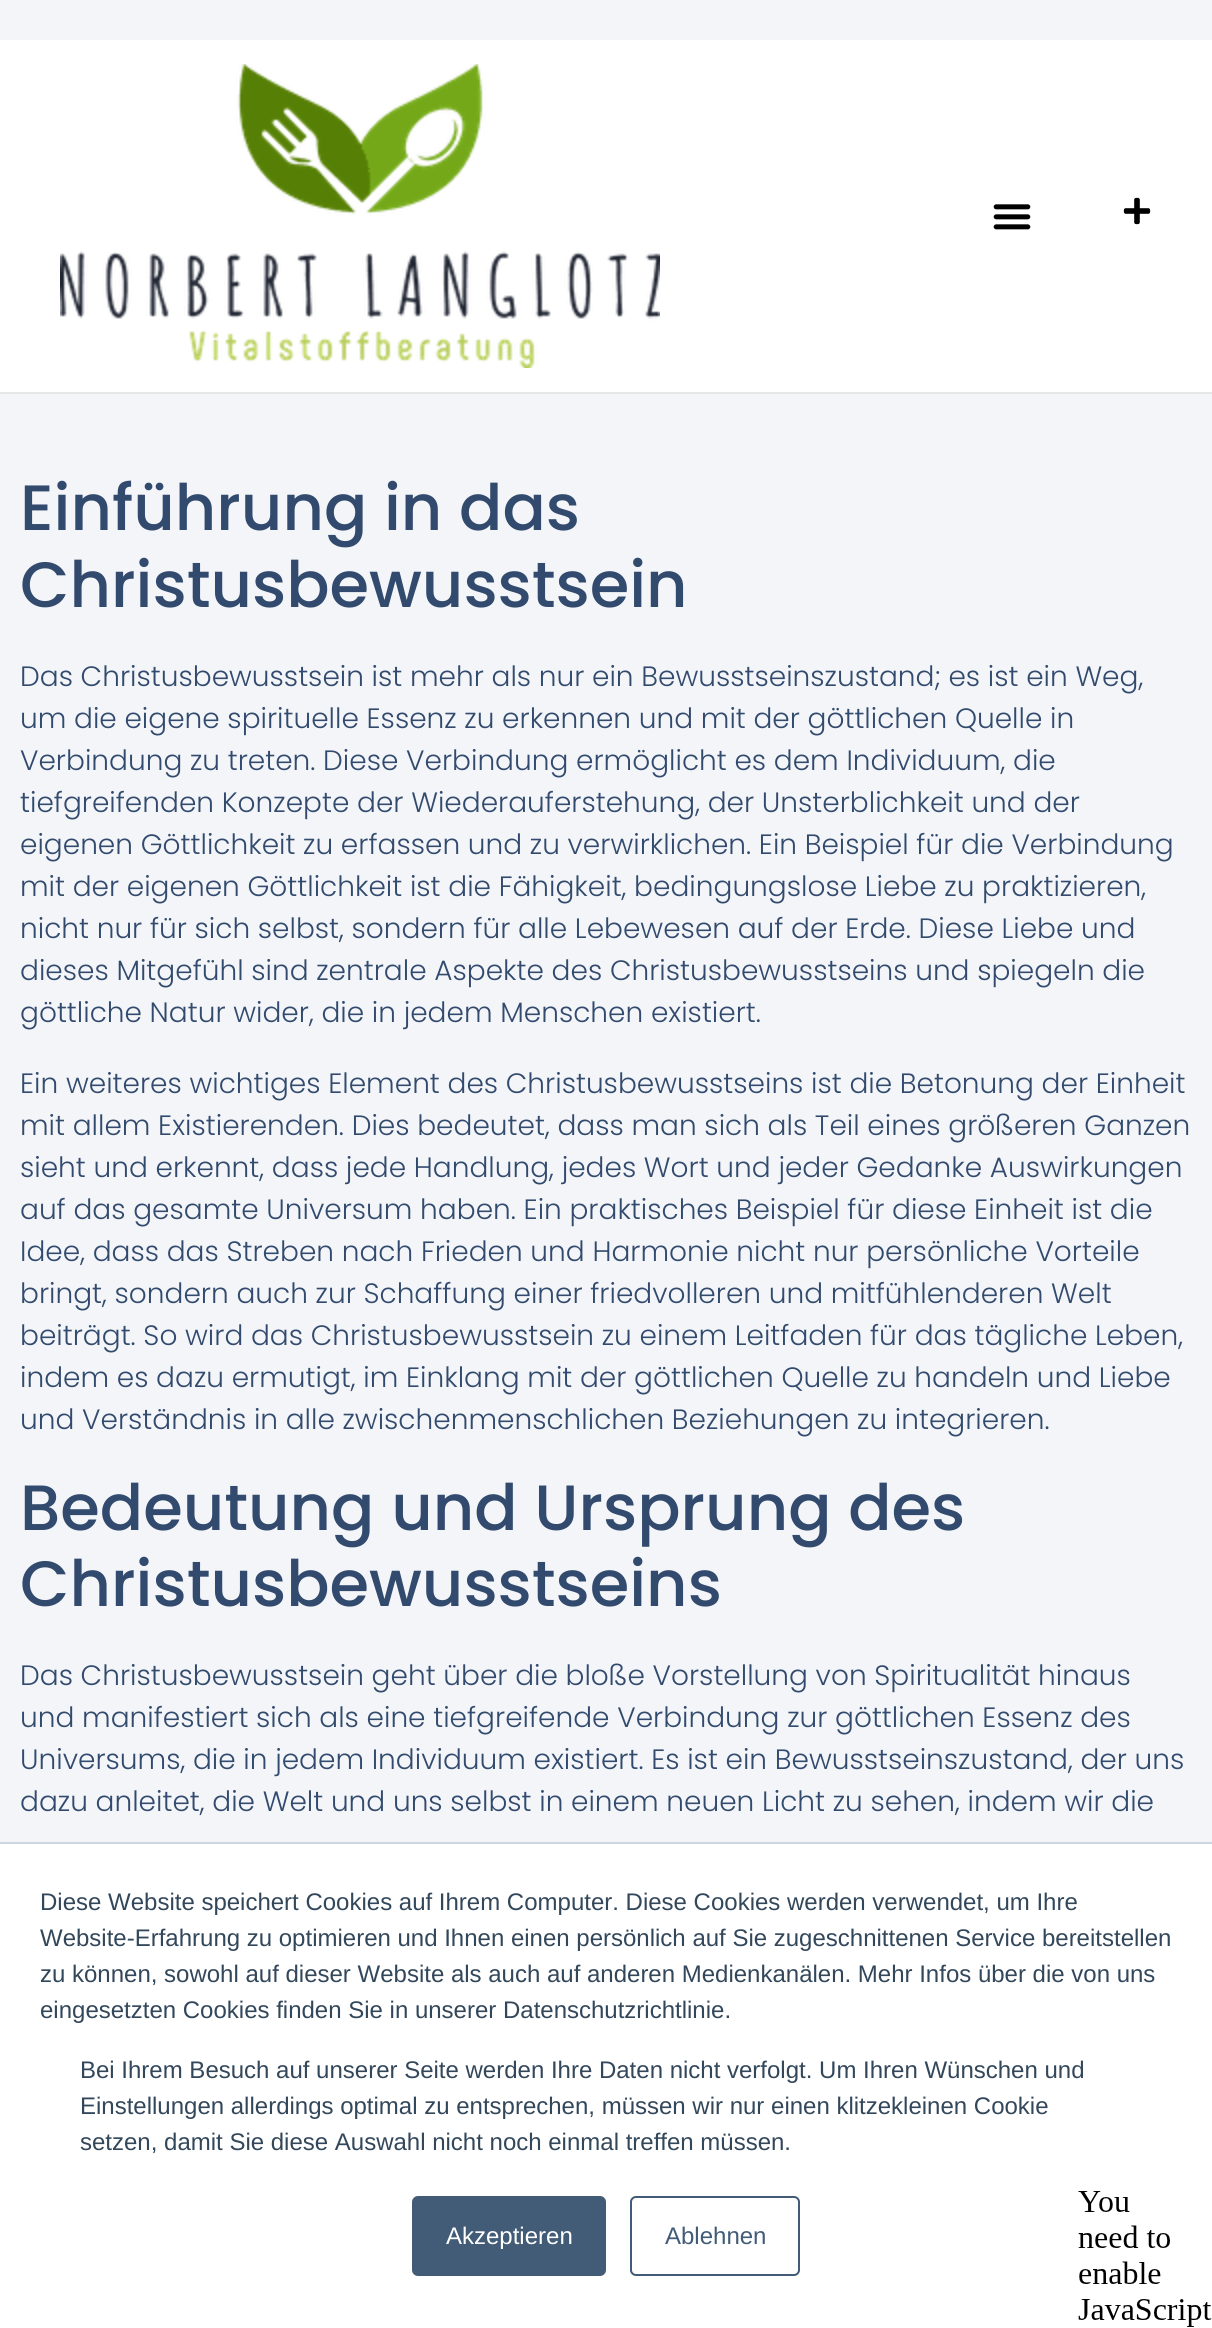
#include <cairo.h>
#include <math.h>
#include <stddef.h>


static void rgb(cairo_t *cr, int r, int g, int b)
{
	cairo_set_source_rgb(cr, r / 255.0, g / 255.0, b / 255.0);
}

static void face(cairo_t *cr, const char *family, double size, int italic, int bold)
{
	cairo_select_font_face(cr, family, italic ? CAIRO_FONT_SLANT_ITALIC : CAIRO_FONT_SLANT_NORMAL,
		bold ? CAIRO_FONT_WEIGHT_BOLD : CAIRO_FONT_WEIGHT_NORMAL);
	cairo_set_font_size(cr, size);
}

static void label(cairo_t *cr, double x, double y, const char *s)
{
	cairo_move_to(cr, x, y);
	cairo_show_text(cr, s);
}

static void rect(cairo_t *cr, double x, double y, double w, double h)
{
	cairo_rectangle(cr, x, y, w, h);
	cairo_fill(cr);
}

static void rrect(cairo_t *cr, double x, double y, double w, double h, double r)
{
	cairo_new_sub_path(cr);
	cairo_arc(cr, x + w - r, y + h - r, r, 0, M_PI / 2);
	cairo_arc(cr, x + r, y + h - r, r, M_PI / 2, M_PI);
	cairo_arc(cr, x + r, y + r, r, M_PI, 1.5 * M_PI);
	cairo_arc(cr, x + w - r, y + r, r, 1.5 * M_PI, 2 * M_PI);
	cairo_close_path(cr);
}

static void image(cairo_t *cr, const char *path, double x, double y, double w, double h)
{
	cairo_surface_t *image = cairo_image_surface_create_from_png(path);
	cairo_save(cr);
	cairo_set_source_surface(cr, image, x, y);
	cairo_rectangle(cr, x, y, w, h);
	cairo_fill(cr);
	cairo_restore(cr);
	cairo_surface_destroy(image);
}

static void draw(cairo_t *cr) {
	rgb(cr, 243, 245, 248);
	cairo_paint(cr);
	rgb(cr, 255, 255, 255);
	rect(cr, 0, 40, 1212, 352);
	rgb(cr, 231, 231, 231);
	rect(cr, 0, 392, 1212, 2);
	image(cr, "image0.png", 60, 64, 600, 304);
	image(cr, "image1.png", 993, 204, 38, 26);
	image(cr, "image2.png", 1123, 197, 28, 28);
	face(cr, "Poppins Medium", 64, 0, 0);
	rgb(cr, 50, 74, 109);
	label(cr, 20, 530, "Einführung in das");
	label(cr, 20, 607, "Christusbewusstsein");
	face(cr, "Poppins Light", 28, 0, 0);
	label(cr, 20, 686, "Das Christusbewusstsein ist mehr als nur ein Bewusstseinszustand; es ist ein Weg,");
	label(cr, 20, 728, "um die eigene spirituelle Essenz zu erkennen und mit der göttlichen Quelle in");
	label(cr, 20, 770, "Verbindung zu treten. Diese Verbindung ermöglicht es dem Individuum, die");
	label(cr, 20, 812, "tiefgreifenden Konzepte der Wiederauferstehung, der Unsterblichkeit und der");
	label(cr, 20, 854, "eigenen Göttlichkeit zu erfassen und zu verwirklichen. Ein Beispiel für die Verbindung");
	label(cr, 20, 896, "mit der eigenen Göttlichkeit ist die Fähigkeit, bedingungslose Liebe zu praktizieren,");
	label(cr, 20, 938, "nicht nur für sich selbst, sondern für alle Lebewesen auf der Erde. Diese Liebe und");
	label(cr, 20, 980, "dieses Mitgefühl sind zentrale Aspekte des Christusbewusstseins und spiegeln die");
	label(cr, 20, 1022, "göttliche Natur wider, die in jedem Menschen existiert.");
	label(cr, 20, 1093, "Ein weiteres wichtiges Element des Christusbewusstseins ist die Betonung der Einheit");
	label(cr, 20, 1135, "mit allem Existierenden. Dies bedeutet, dass man sich als Teil eines größeren Ganzen");
	label(cr, 20, 1177, "sieht und erkennt, dass jede Handlung, jedes Wort und jeder Gedanke Auswirkungen");
	label(cr, 20, 1219, "auf das gesamte Universum haben. Ein praktisches Beispiel für diese Einheit ist die");
	label(cr, 20, 1261, "Idee, dass das Streben nach Frieden und Harmonie nicht nur persönliche Vorteile");
	label(cr, 20, 1303, "bringt, sondern auch zur Schaffung einer friedvolleren und mitfühlenderen Welt");
	label(cr, 20, 1345, "beiträgt. So wird das Christusbewusstsein zu einem Leitfaden für das tägliche Leben,");
	label(cr, 20, 1387, "indem es dazu ermutigt, im Einklang mit der göttlichen Quelle zu handeln und Liebe");
	label(cr, 20, 1429, "und Verständnis in alle zwischenmenschlichen Beziehungen zu integrieren.");
	face(cr, "Poppins Medium", 64, 0, 0);
	label(cr, 20, 1530, "Bedeutung und Ursprung des");
	label(cr, 20, 1606, "Christusbewusstseins");
	face(cr, "Poppins Light", 28, 0, 0);
	label(cr, 20, 1685, "Das Christusbewusstsein geht über die bloße Vorstellung von Spiritualität hinaus");
	label(cr, 20, 1727, "und manifestiert sich als eine tiefgreifende Verbindung zur göttlichen Essenz des");
	label(cr, 20, 1769, "Universums, die in jedem Individuum existiert. Es ist ein Bewusstseinszustand, der uns");
	label(cr, 20, 1811, "dazu anleitet, die Welt und uns selbst in einem neuen Licht zu sehen, indem wir die");
	rgb(cr, 255, 255, 255);
	rect(cr, 0, 1844, 1212, 484);
	rgb(cr, 203, 214, 226);
	rect(cr, 0, 1842, 1212, 2);
	face(cr, "Liberation Sans", 24, 0, 0);
	rgb(cr, 51, 71, 91);
	label(cr, 40, 1910, "Diese Website speichert Cookies auf Ihrem Computer. Diese Cookies werden verwendet, um Ihre");
	label(cr, 40, 1946, "Website-Erfahrung zu optimieren und Ihnen einen persönlich auf Sie zugeschnittenen Service bereitstellen");
	label(cr, 40, 1982, "zu können, sowohl auf dieser Website als auch auf anderen Medienkanälen. Mehr Infos über die von uns");
	label(cr, 40, 2018, "eingesetzten Cookies finden Sie in unserer Datenschutzrichtlinie.");
	label(cr, 80, 2078, "Bei Ihrem Besuch auf unserer Seite werden Ihre Daten nicht verfolgt. Um Ihren Wünschen und");
	label(cr, 80, 2114, "Einstellungen allerdings optimal zu entsprechen, müssen wir nur einen klitzekleinen Cookie");
	label(cr, 80, 2150, "setzen, damit Sie diese Auswahl nicht noch einmal treffen müssen.");
	rgb(cr, 66, 91, 118);
	rrect(cr, 413, 2197, 192, 78, 5);
	cairo_fill_preserve(cr);
	cairo_stroke(cr);
	rgb(cr, 255, 255, 255);
	label(cr, 446, 2244, "Akzeptieren");
	rrect(cr, 631, 2197, 168, 78, 5);
	rgb(cr, 66, 91, 118);
	cairo_stroke(cr);
	label(cr, 665, 2244, "Ablehnen");
	image(cr, "image3.png", 1078, 2191, 134, 136);
}

int main(void) {
	cairo_surface_t *surface = cairo_image_surface_create(CAIRO_FORMAT_RGB24, 1212, 2328);
	cairo_t *cr = cairo_create(surface);
	cairo_font_options_t *options = cairo_font_options_create();
	cairo_font_options_set_hint_metrics(options, CAIRO_HINT_METRICS_OFF);
	cairo_font_options_set_hint_style(options, CAIRO_HINT_STYLE_NONE);
	cairo_set_font_options(cr, options);
	cairo_set_miter_limit(cr, 4);
	draw(cr);
	cairo_surface_write_to_png(surface, "render.png");
	cairo_font_options_destroy(options);
	cairo_destroy(cr);
	cairo_surface_destroy(surface);
	return 0;
}
